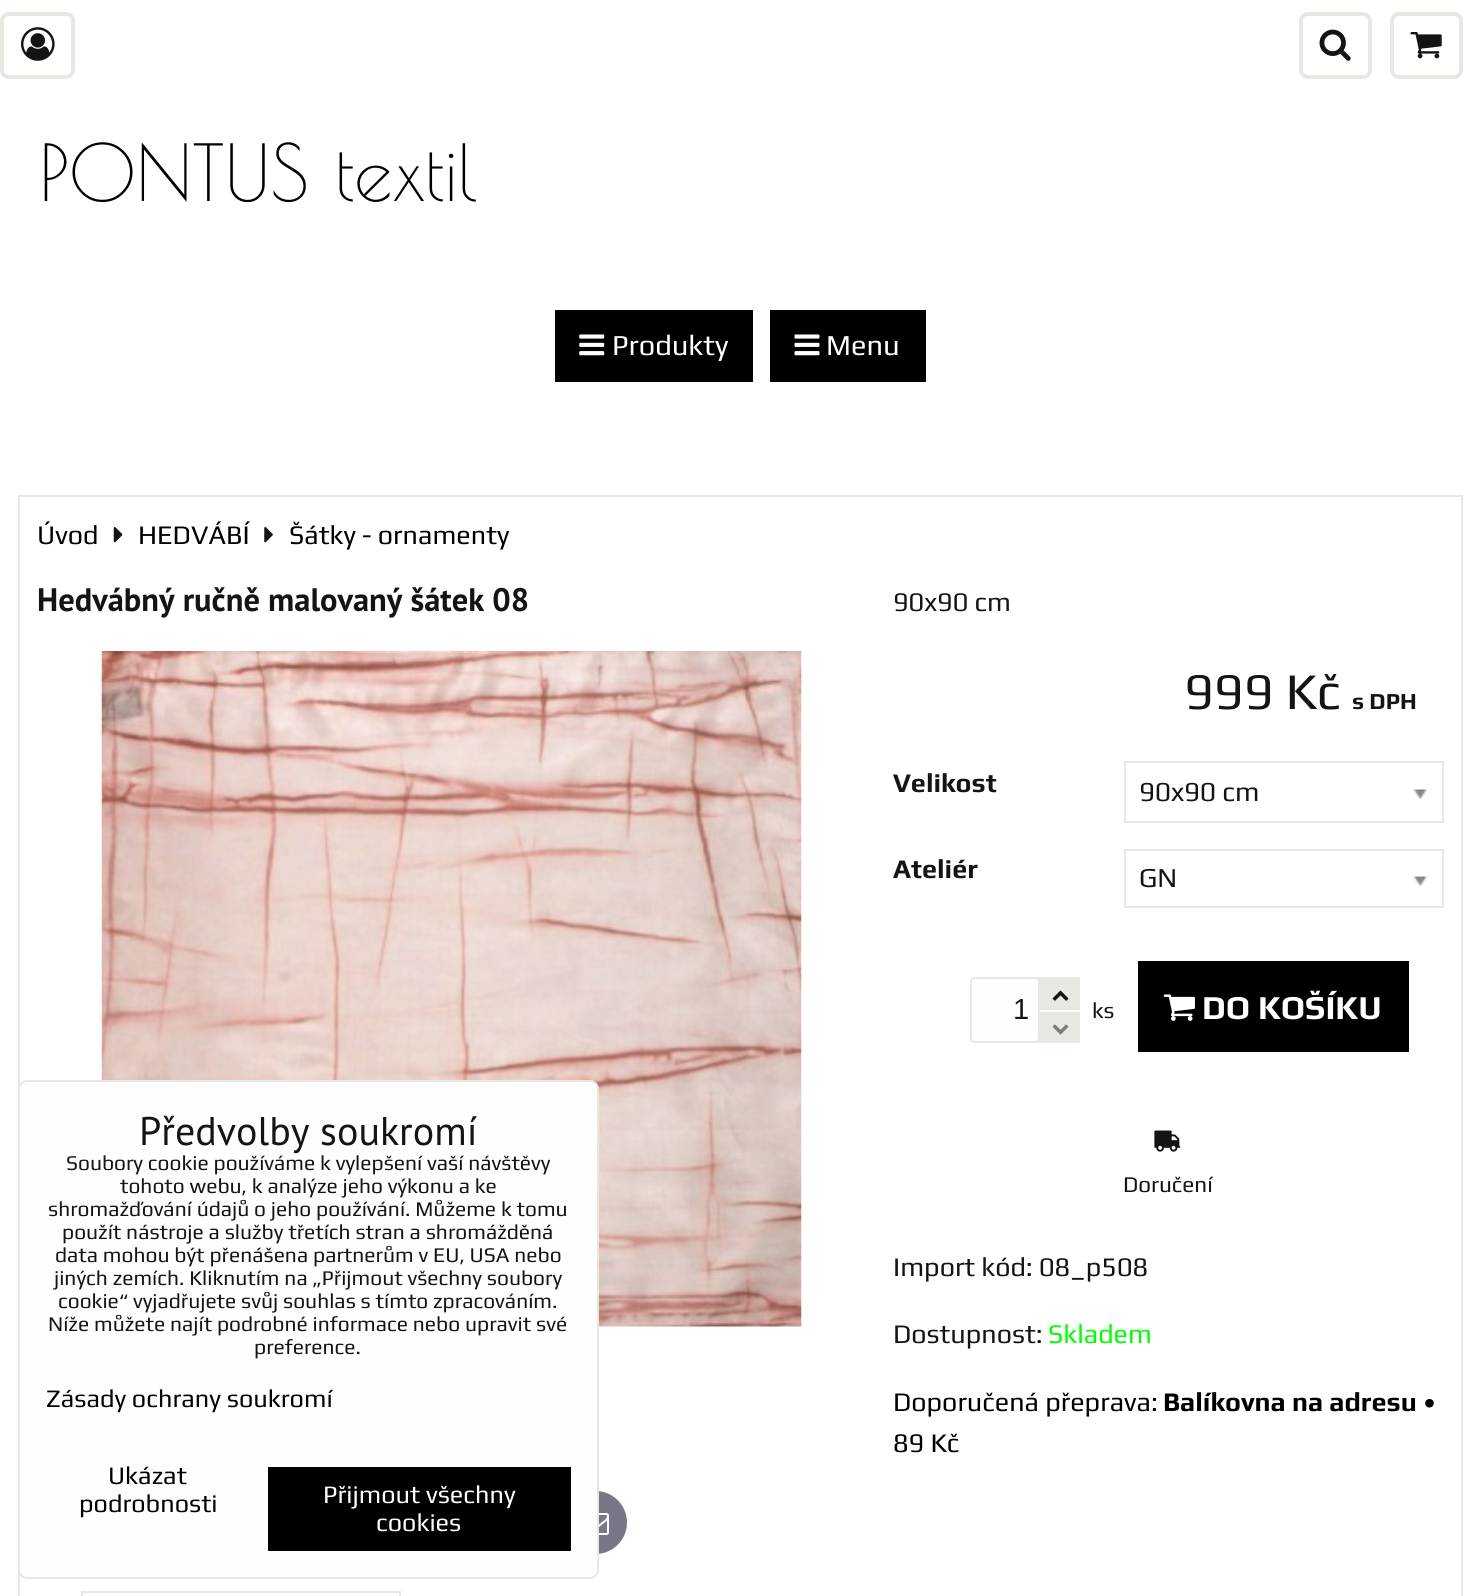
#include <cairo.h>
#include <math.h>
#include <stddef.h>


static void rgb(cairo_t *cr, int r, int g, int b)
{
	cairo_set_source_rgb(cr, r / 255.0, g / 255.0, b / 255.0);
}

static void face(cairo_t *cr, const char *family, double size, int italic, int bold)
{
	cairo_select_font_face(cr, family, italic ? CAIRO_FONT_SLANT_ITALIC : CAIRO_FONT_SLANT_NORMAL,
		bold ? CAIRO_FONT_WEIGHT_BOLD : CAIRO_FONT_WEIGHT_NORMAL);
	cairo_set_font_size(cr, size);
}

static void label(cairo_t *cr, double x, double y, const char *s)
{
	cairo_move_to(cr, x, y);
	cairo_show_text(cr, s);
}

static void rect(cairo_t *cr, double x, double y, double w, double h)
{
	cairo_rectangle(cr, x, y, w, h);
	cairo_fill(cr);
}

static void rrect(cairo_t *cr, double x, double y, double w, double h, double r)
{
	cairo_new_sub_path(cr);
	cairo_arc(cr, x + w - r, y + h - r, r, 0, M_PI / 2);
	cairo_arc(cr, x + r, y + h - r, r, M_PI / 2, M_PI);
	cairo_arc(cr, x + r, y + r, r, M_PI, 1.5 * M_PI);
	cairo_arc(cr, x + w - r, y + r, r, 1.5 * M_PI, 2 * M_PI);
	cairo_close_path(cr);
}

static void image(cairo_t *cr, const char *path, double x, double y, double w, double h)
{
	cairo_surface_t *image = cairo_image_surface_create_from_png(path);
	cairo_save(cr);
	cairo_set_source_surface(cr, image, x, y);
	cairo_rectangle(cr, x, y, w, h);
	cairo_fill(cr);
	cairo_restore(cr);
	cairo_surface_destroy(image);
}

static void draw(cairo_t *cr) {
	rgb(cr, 255, 255, 255);
	cairo_paint(cr);
	rrect(cr, 2, 14, 71, 63, 7);
	rgb(cr, 232, 231, 225);
	cairo_set_line_width(cr, 4);
	cairo_stroke(cr);
	image(cr, "image0.png", 21, 27, 34, 34);
	rrect(cr, 1301, 14, 69, 63, 7);
	cairo_stroke(cr);
	image(cr, "image1.png", 1319, 29, 32, 32);
	rrect(cr, 1392, 14, 69, 63, 7);
	cairo_stroke(cr);
	image(cr, "image2.png", 1410, 32, 32, 27);
	face(cr, "Poiret One", 77, 0, 0);
	rgb(cr, 0, 0, 0);
	label(cr, 39, 201, "PONTUS textil");
	rect(cr, 555, 310, 198, 72);
	image(cr, "image3.png", 579, 334, 26, 22);
	face(cr, "Play", 29, 0, 0);
	rgb(cr, 255, 255, 255);
	label(cr, 612, 355, "Produkty");
	rgb(cr, 0, 0, 0);
	rect(cr, 770, 310, 156, 72);
	image(cr, "image4.png", 794, 334, 26, 22);
	rgb(cr, 255, 255, 255);
	label(cr, 826, 355, "Menu");
	cairo_rectangle(cr, 19, 496, 1443, 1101);
	rgb(cr, 232, 231, 225);
	cairo_set_line_width(cr, 2);
	cairo_stroke(cr);
	face(cr, "Play", 26.9, 0, 0);
	rgb(cr, 0, 0, 0);
	label(cr, 37, 544, "Úvod");
	image(cr, "image5.png", 113, 527, 10, 16);
	label(cr, 138, 544, "HEDVÁBÍ");
	image(cr, "image6.png", 264, 527, 9, 16);
	label(cr, 289, 544, "Šátky - ornamenty");
	face(cr, "PT Sans", 32.5, 0, 1);
	rgb(cr, 20, 20, 20);
	label(cr, 37, 611, "Hedvábný ručně malovaný šátek 08");
	image(cr, "image7.png", 101, 651, 701, 676);
	face(cr, "Play", 26.9, 0, 0);
	label(cr, 893, 611, "90x90 cm");
	face(cr, "Play", 51.5, 0, 0);
	label(cr, 1184, 709, "999 Kč");
	face(cr, "Play", 23, 0, 1);
	label(cr, 1352, 709, "s DPH");
	face(cr, "Play", 26.9, 0, 1);
	label(cr, 893, 792, "Velikost");
	cairo_rectangle(cr, 1125, 762, 318, 60);
	rgb(cr, 232, 231, 225);
	cairo_stroke(cr);
	face(cr, "Play", 27.5, 0, 0);
	rgb(cr, 20, 20, 20);
	label(cr, 1139, 801, "90x90 cm");
	image(cr, "image8.png", 1413, 789, 14, 11);
	face(cr, "Play", 26.9, 0, 1);
	label(cr, 893, 878, "Ateliér");
	cairo_rectangle(cr, 1125, 850, 318, 57);
	rgb(cr, 232, 231, 225);
	cairo_stroke(cr);
	face(cr, "Play", 27.5, 0, 0);
	rgb(cr, 20, 20, 20);
	label(cr, 1139, 887, "GN");
	image(cr, "image9.png", 1413, 876, 14, 11);
	rgb(cr, 232, 231, 225);
	rect(cr, 1035, 977, 45, 66);
	rgb(cr, 254, 254, 254);
	rrect(cr, 971, 978, 68, 64, 4);
	cairo_fill_preserve(cr);
	rgb(cr, 232, 231, 225);
	cairo_stroke(cr);
	face(cr, "Liberation Sans", 29, 0, 0);
	rgb(cr, 20, 20, 20);
	label(cr, 1013, 1019, "1");
	image(cr, "image10.png", 1052, 990, 17, 11);
	rgb(cr, 255, 255, 255);
	rect(cr, 1040, 1010, 40, 2);
	image(cr, "image11.png", 1052, 1024, 17, 11);
	face(cr, "Play", 22.5, 0, 0);
	rgb(cr, 20, 20, 20);
	label(cr, 1092, 1018, "ks");
	rgb(cr, 0, 0, 0);
	rect(cr, 1138, 961, 271, 91);
	image(cr, "image12.png", 1163, 994, 32, 27);
	face(cr, "Play", 33.5, 0, 1);
	rgb(cr, 255, 255, 255);
	label(cr, 1202, 1019, "DO KOŠÍKU");
	image(cr, "image13.png", 1154, 1130, 27, 22);
	face(cr, "Play", 22.5, 0, 0);
	rgb(cr, 20, 20, 20);
	label(cr, 1123, 1192, "Doručení");
	face(cr, "Play", 26.9, 0, 0);
	label(cr, 893, 1276, "Import kód: 08_p508");
	label(cr, 893, 1343, "Dostupnost:");
	rgb(cr, 0, 255, 0);
	label(cr, 1048, 1343, "Skladem");
	rgb(cr, 0, 0, 0);
	label(cr, 893, 1411, "Doporučená přeprava:");
	face(cr, "Play", 26.9, 0, 1);
	label(cr, 1163, 1411, "Balíkovna na adresu");
	face(cr, "Play", 26.9, 0, 0);
	label(cr, 1423, 1411, "•");
	label(cr, 893, 1452, "89 Kč");
	rgb(cr, 119, 119, 136);
	cairo_new_path(cr);
	cairo_arc(cr, 595.5, 1522.5, 31.5, 0, 2 * M_PI);
	cairo_fill(cr);
	image(cr, "image14.png", 599, 1513, 10, 22);
	rgb(cr, 232, 231, 225);
	rect(cr, 81, 1591, 320, 2);
	rect(cr, 399, 1591, 2, 5);
	rect(cr, 81, 1591, 2, 5);
	rgb(cr, 254, 254, 254);
	rrect(cr, 19, 1081, 579, 497, 8);
	cairo_fill_preserve(cr);
	rgb(cr, 232, 231, 225);
	cairo_stroke(cr);
	face(cr, "PT Sans", 40, 0, 0);
	rgb(cr, 20, 20, 20);
	label(cr, 139, 1145, "Předvolby soukromí");
	face(cr, "Play", 21, 0, 0);
	label(cr, 66, 1170, "Soubory cookie používáme k vylepšení vaší návštěvy");
	label(cr, 120, 1193, "tohoto webu, k analýze jeho výkonu a ke");
	label(cr, 48, 1216, "shromažďování údajů o jeho používání. Můžeme k tomu");
	label(cr, 62, 1239, "použít nástroje a služby třetích stran a shromážděná");
	label(cr, 55, 1262, "data mohou být přenášena partnerům v EU, USA nebo");
	label(cr, 54, 1285, "jiných zemích. Kliknutím na „Přijmout všechny soubory");
	label(cr, 58, 1308, "cookie“ vyjadřujete svůj souhlas s tímto zpracováním.");
	label(cr, 48, 1331, "Níže můžete najít podrobné informace nebo upravit své");
	label(cr, 254, 1354, "preference.");
	face(cr, "Play", 25.25, 0, 0);
	rgb(cr, 0, 0, 0);
	label(cr, 46, 1407, "Zásady ochrany soukromí");
	label(cr, 108, 1484, "Ukázat");
	label(cr, 79, 1512, "podrobnosti");
	rect(cr, 268, 1467, 303, 84);
	rgb(cr, 255, 255, 255);
	label(cr, 323, 1503, "Přijmout všechny");
	label(cr, 376, 1531, "cookies");
}

int main(void) {
	cairo_surface_t *surface = cairo_image_surface_create(CAIRO_FORMAT_RGB24, 1479, 1596);
	cairo_t *cr = cairo_create(surface);
	cairo_font_options_t *options = cairo_font_options_create();
	cairo_font_options_set_hint_metrics(options, CAIRO_HINT_METRICS_OFF);
	cairo_font_options_set_hint_style(options, CAIRO_HINT_STYLE_NONE);
	cairo_set_font_options(cr, options);
	cairo_set_miter_limit(cr, 4);
	draw(cr);
	cairo_surface_write_to_png(surface, "render.png");
	cairo_font_options_destroy(options);
	cairo_destroy(cr);
	cairo_surface_destroy(surface);
	return 0;
}
